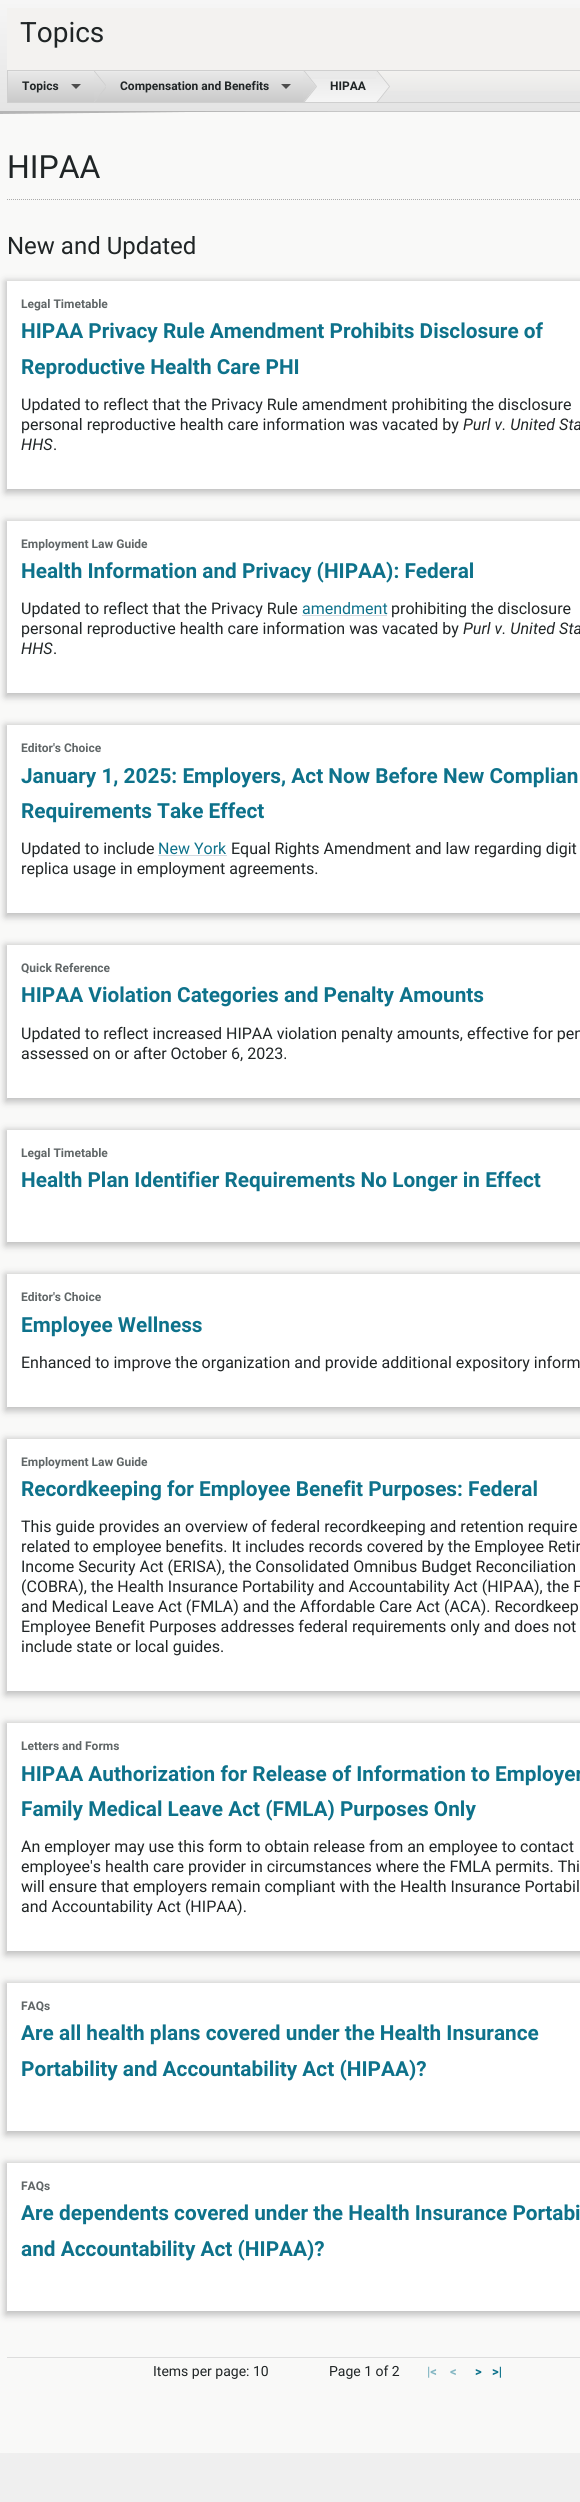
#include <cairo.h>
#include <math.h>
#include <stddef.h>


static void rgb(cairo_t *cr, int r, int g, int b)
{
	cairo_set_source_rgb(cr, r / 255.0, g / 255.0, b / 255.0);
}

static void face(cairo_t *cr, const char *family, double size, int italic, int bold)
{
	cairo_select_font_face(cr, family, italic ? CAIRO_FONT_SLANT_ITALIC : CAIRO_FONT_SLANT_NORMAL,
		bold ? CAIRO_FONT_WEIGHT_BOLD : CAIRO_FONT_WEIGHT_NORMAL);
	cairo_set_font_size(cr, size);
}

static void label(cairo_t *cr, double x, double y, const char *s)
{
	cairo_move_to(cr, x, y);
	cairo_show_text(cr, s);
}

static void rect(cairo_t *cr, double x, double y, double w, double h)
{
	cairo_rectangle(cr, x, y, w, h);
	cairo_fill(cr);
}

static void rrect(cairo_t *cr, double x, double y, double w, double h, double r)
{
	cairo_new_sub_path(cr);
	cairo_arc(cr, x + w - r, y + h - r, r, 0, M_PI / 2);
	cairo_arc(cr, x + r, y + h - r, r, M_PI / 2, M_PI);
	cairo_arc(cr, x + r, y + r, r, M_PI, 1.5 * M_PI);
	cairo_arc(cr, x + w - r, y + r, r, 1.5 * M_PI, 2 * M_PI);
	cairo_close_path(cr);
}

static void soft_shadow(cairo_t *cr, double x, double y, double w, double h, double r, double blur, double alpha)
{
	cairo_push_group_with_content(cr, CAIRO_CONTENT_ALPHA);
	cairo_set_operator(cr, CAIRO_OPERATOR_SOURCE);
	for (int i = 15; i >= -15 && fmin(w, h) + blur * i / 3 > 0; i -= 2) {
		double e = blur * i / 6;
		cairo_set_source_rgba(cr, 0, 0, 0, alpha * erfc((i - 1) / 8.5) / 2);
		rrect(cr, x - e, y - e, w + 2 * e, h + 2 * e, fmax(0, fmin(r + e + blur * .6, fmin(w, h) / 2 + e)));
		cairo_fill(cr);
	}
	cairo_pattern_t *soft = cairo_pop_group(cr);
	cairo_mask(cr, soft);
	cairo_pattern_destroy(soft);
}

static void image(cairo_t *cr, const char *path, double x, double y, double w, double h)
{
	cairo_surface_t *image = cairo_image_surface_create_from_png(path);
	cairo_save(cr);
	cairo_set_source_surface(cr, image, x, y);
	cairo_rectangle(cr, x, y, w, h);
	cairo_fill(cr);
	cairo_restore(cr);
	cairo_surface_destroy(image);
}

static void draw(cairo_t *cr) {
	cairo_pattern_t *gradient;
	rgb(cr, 239, 239, 239);
	cairo_paint(cr);
	rgb(cr, 249, 249, 248);
	rect(cr, 0, 112, 580, 2341);
	gradient = cairo_pattern_create_linear(486, 0, 486, 111);
	cairo_pattern_add_color_stop_rgba(gradient, 0, 0.965, 0.965, 0.965, 1);
	cairo_pattern_add_color_stop_rgba(gradient, 1, 0.894, 0.894, 0.894, 1);
	cairo_set_source(cr, gradient);
	cairo_pattern_destroy(gradient);
	rect(cr, 0, 0, 580, 111);
	rgb(cr, 199, 199, 199);
	rect(cr, 195, 111, 385, 1);
	rgb(cr, 243, 242, 240);
	rect(cr, 7, 8, 573, 62);
	face(cr, "Roboto", 28, 0, 0);
	rgb(cr, 32, 37, 38);
	label(cr, 20, 42, "Topics");
	gradient = cairo_pattern_create_linear(486, 71, 486, 102);
	cairo_pattern_add_color_stop_rgba(gradient, 0, 0.953, 0.949, 0.941, 1);
	cairo_pattern_add_color_stop_rgba(gradient, 1, 0.894, 0.894, 0.894, 1);
	cairo_set_source(cr, gradient);
	cairo_pattern_destroy(gradient);
	rect(cr, 376, 71, 204, 20);
	cairo_rectangle(cr, 7.5, 70.5, 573, 32);
	rgb(cr, 207, 207, 207);
	cairo_set_line_width(cr, 1);
	cairo_stroke(cr);
	gradient = cairo_pattern_create_linear(51, 71, 51, 102);
	cairo_pattern_add_color_stop_rgba(gradient, 0, 0.91, 0.91, 0.91, 1);
	cairo_pattern_add_color_stop_rgba(gradient, 1, 0.792, 0.792, 0.792, 1);
	cairo_set_source(cr, gradient);
	cairo_pattern_destroy(gradient);
	rect(cr, 8, 72, 85, 30);
	face(cr, "Roboto", 12, 0, 1);
	rgb(cr, 32, 37, 38);
	label(cr, 22, 90, "Topics");
	rgb(cr, 77, 77, 77);
	cairo_new_path(cr);
	cairo_move_to(cr, 71, 84);
	cairo_line_to(cr, 76, 89);
	cairo_line_to(cr, 81, 84);
	cairo_close_path(cr);
	cairo_fill(cr);
	gradient = cairo_pattern_create_linear(198, 71, 198, 102);
	cairo_pattern_add_color_stop_rgba(gradient, 0, 0.91, 0.91, 0.91, 1);
	cairo_pattern_add_color_stop_rgba(gradient, 1, 0.792, 0.792, 0.792, 1);
	cairo_set_source(cr, gradient);
	cairo_pattern_destroy(gradient);
	rect(cr, 93, 72, 210, 30);
	image(cr, "image0.png", 94, 71, 12, 31);
	rgb(cr, 32, 37, 38);
	label(cr, 120, 90, "Compensation and Benefits");
	rgb(cr, 77, 77, 77);
	cairo_new_path(cr);
	cairo_move_to(cr, 281, 84);
	cairo_line_to(cr, 286, 89);
	cairo_line_to(cr, 291, 84);
	cairo_close_path(cr);
	cairo_fill(cr);
	gradient = cairo_pattern_create_linear(340, 71, 340, 102);
	cairo_pattern_add_color_stop_rgba(gradient, 0, 0.91, 0.91, 0.91, 1);
	cairo_pattern_add_color_stop_rgba(gradient, 1, 0.961, 0.961, 0.961, 1);
	cairo_set_source(cr, gradient);
	cairo_pattern_destroy(gradient);
	rect(cr, 303, 79, 73, 23);
	image(cr, "image1.png", 303, 71, 14, 31);
	rgb(cr, 32, 37, 38);
	label(cr, 330, 90, "HIPAA");
	image(cr, "image2.png", 376, 71, 14, 31);
	cairo_save(cr);
	cairo_rectangle(cr, 0, 111, 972, 11);
	cairo_clip(cr);
	rgb(cr, 181, 181, 181);
	cairo_set_fill_rule(cr, CAIRO_FILL_RULE_EVEN_ODD);
	cairo_new_path(cr);
	cairo_move_to(cr, 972, 114);
	cairo_line_to(cr, 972, 103);
	cairo_line_to(cr, 0, 103);
	cairo_line_to(cr, 0, 114);
	cairo_line_to(cr, 185, 112);
	cairo_line_to(cr, 490, 110);
	cairo_line_to(cr, 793, 112);
	cairo_close_path(cr);
	cairo_fill(cr);
	cairo_restore(cr);
	cairo_new_path(cr);
	cairo_move_to(cr, 7, 199.5);
	cairo_line_to(cr, 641, 199.5);
	rgb(cr, 171, 171, 171);
	cairo_set_dash(cr, (double[]){1, 1}, 2, 0);
	cairo_stroke(cr);
	face(cr, "Roboto", 32, 0, 0);
	rgb(cr, 32, 37, 38);
	label(cr, 7, 178, "HIPAA");
	face(cr, "Roboto", 24, 0, 0);
	label(cr, 7, 254, "New and Updated");
	rgb(cr, 191, 191, 191);
	soft_shadow(cr, 5, 281, 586, 212, 0, 3.5, 1);
	rgb(cr, 255, 255, 255);
	rect(cr, 7, 281, 573, 208);
	face(cr, "Roboto", 12, 0, 1);
	rgb(cr, 96, 102, 103);
	label(cr, 21, 308, "Legal Timetable");
	face(cr, "Roboto", 20.8, 0, 1);
	rgb(cr, 14, 114, 139);
	label(cr, 21, 338, "HIPAA Privacy Rule Amendment Prohibits Disclosure of");
	label(cr, 21, 374, "Reproductive Health Care PHI");
	face(cr, "Roboto", 16, 0, 0);
	rgb(cr, 32, 37, 38);
	label(cr, 21, 410, "Updated to reflect that the Privacy Rule amendment prohibiting the disclosure");
	label(cr, 21, 430, "personal reproductive health care information was vacated by");
	face(cr, "Roboto", 16, 1, 0);
	label(cr, 463, 430, "Purl v. United Sta");
	label(cr, 21, 450, "HHS");
	face(cr, "Roboto", 16, 0, 0);
	label(cr, 53, 450, ".");
	rgb(cr, 191, 191, 191);
	soft_shadow(cr, 5, 521, 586, 176, 0, 3.5, 1);
	rgb(cr, 255, 255, 255);
	rect(cr, 7, 521, 573, 172);
	face(cr, "Roboto", 12, 0, 1);
	rgb(cr, 96, 102, 103);
	label(cr, 21, 548, "Employment Law Guide");
	face(cr, "Roboto", 20.8, 0, 1);
	rgb(cr, 14, 114, 139);
	label(cr, 21, 578, "Health Information and Privacy (HIPAA): Federal");
	face(cr, "Roboto", 16, 0, 0);
	rgb(cr, 32, 37, 38);
	label(cr, 21, 614, "Updated to reflect that the Privacy Rule");
	rgb(cr, 14, 114, 139);
	label(cr, 302, 614, "amendment");
	rgb(cr, 209, 217, 225);
	rect(cr, 302, 615, 85, 1);
	rgb(cr, 32, 37, 38);
	label(cr, 391, 614, "prohibiting the disclosure");
	label(cr, 21, 634, "personal reproductive health care information was vacated by");
	face(cr, "Roboto", 16, 1, 0);
	label(cr, 463, 634, "Purl v. United Sta");
	label(cr, 21, 654, "HHS");
	face(cr, "Roboto", 16, 0, 0);
	label(cr, 53, 654, ".");
	rgb(cr, 191, 191, 191);
	soft_shadow(cr, 5, 725, 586, 192, 0, 3.5, 1);
	rgb(cr, 255, 255, 255);
	rect(cr, 7, 725, 573, 188);
	face(cr, "Roboto", 12, 0, 1);
	rgb(cr, 96, 102, 103);
	label(cr, 21, 752, "Editor's Choice");
	face(cr, "Roboto", 20.8, 0, 1);
	rgb(cr, 14, 114, 139);
	label(cr, 21, 783, "January 1, 2025: Employers, Act Now Before New Complian");
	label(cr, 21, 818, "Requirements Take Effect");
	face(cr, "Roboto", 16, 0, 0);
	rgb(cr, 32, 37, 38);
	label(cr, 21, 854, "Updated to include");
	rgb(cr, 14, 114, 139);
	label(cr, 158, 854, "New York");
	rgb(cr, 209, 217, 225);
	rect(cr, 158, 855, 69, 1);
	rgb(cr, 32, 37, 38);
	label(cr, 231, 854, "Equal Rights Amendment and law regarding digit");
	label(cr, 21, 874, "replica usage in employment agreements.");
	rgb(cr, 191, 191, 191);
	soft_shadow(cr, 5, 945, 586, 157, 0, 3.5, 1);
	rgb(cr, 255, 255, 255);
	rect(cr, 7, 945, 573, 153);
	face(cr, "Roboto", 12, 0, 1);
	rgb(cr, 96, 102, 103);
	label(cr, 21, 972, "Quick Reference");
	face(cr, "Roboto", 20.8, 0, 1);
	rgb(cr, 14, 114, 139);
	label(cr, 21, 1002, "HIPAA Violation Categories and Penalty Amounts");
	face(cr, "Roboto", 16, 0, 0);
	rgb(cr, 32, 37, 38);
	label(cr, 21, 1039, "Updated to reflect increased HIPAA violation penalty amounts, effective for pen");
	label(cr, 21, 1059, "assessed on or after October 6, 2023.");
	rgb(cr, 191, 191, 191);
	soft_shadow(cr, 5, 1130, 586, 116, 0, 3.5, 1);
	rgb(cr, 255, 255, 255);
	rect(cr, 7, 1130, 573, 112);
	face(cr, "Roboto", 12, 0, 1);
	rgb(cr, 96, 102, 103);
	label(cr, 21, 1157, "Legal Timetable");
	face(cr, "Roboto", 20.8, 0, 1);
	rgb(cr, 14, 114, 139);
	label(cr, 21, 1187, "Health Plan Identifier Requirements No Longer in Effect");
	rgb(cr, 191, 191, 191);
	soft_shadow(cr, 5, 1274, 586, 137, 0, 3.5, 1);
	rgb(cr, 255, 255, 255);
	rect(cr, 7, 1274, 573, 133);
	face(cr, "Roboto", 12, 0, 1);
	rgb(cr, 96, 102, 103);
	label(cr, 21, 1301, "Editor's Choice");
	face(cr, "Roboto", 20.8, 0, 1);
	rgb(cr, 14, 114, 139);
	label(cr, 21, 1332, "Employee Wellness");
	face(cr, "Roboto", 16, 0, 0);
	rgb(cr, 32, 37, 38);
	label(cr, 21, 1368, "Enhanced to improve the organization and provide additional expository inform");
	rgb(cr, 191, 191, 191);
	soft_shadow(cr, 5, 1439, 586, 256, 0, 3.5, 1);
	rgb(cr, 255, 255, 255);
	rect(cr, 7, 1439, 573, 252);
	face(cr, "Roboto", 12, 0, 1);
	rgb(cr, 96, 102, 103);
	label(cr, 21, 1466, "Employment Law Guide");
	face(cr, "Roboto", 20.8, 0, 1);
	rgb(cr, 14, 114, 139);
	label(cr, 21, 1496, "Recordkeeping for Employee Benefit Purposes: Federal");
	face(cr, "Roboto", 16, 0, 0);
	rgb(cr, 32, 37, 38);
	label(cr, 21, 1532, "This guide provides an overview of federal recordkeeping and retention require");
	label(cr, 21, 1552, "related to employee benefits. It includes records covered by the Employee Retir");
	label(cr, 21, 1572, "Income Security Act (ERISA), the Consolidated Omnibus Budget Reconciliation");
	label(cr, 21, 1592, "(COBRA), the Health Insurance Portability and Accountability Act (HIPAA), the F");
	label(cr, 21, 1612, "and Medical Leave Act (FMLA) and the Affordable Care Act (ACA). Recordkeep");
	label(cr, 21, 1632, "Employee Benefit Purposes addresses federal requirements only and does not");
	label(cr, 21, 1652, "include state or local guides.");
	rgb(cr, 191, 191, 191);
	soft_shadow(cr, 5, 1723, 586, 232, 0, 3.5, 1);
	rgb(cr, 255, 255, 255);
	rect(cr, 7, 1723, 573, 228);
	face(cr, "Roboto", 12, 0, 1);
	rgb(cr, 96, 102, 103);
	label(cr, 21, 1750, "Letters and Forms");
	face(cr, "Roboto", 20.8, 0, 1);
	rgb(cr, 14, 114, 139);
	label(cr, 21, 1781, "HIPAA Authorization for Release of Information to Employer");
	label(cr, 21, 1816, "Family Medical Leave Act (FMLA) Purposes Only");
	face(cr, "Roboto", 16, 0, 0);
	rgb(cr, 32, 37, 38);
	label(cr, 21, 1852, "An employer may use this form to obtain release from an employee to contact");
	label(cr, 21, 1872, "employee's health care provider in circumstances where the FMLA permits. Thi");
	label(cr, 21, 1892, "will ensure that employers remain compliant with the Health Insurance Portabil");
	label(cr, 21, 1912, "and Accountability Act (HIPAA).");
	rgb(cr, 191, 191, 191);
	soft_shadow(cr, 5, 1983, 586, 152, 0, 3.5, 1);
	rgb(cr, 255, 255, 255);
	rect(cr, 7, 1983, 573, 148);
	face(cr, "Roboto", 12, 0, 1);
	rgb(cr, 96, 102, 103);
	label(cr, 21, 2010, "FAQs");
	face(cr, "Roboto", 20.8, 0, 1);
	rgb(cr, 14, 114, 139);
	label(cr, 21, 2040, "Are all health plans covered under the Health Insurance");
	label(cr, 21, 2076, "Portability and Accountability Act (HIPAA)?");
	rgb(cr, 191, 191, 191);
	soft_shadow(cr, 5, 2163, 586, 152, 0, 3.5, 1);
	rgb(cr, 255, 255, 255);
	rect(cr, 7, 2163, 573, 148);
	face(cr, "Roboto", 12, 0, 1);
	rgb(cr, 96, 102, 103);
	label(cr, 21, 2190, "FAQs");
	face(cr, "Roboto", 20.8, 0, 1);
	rgb(cr, 14, 114, 139);
	label(cr, 21, 2220, "Are dependents covered under the Health Insurance Portabi");
	label(cr, 21, 2256, "and Accountability Act (HIPAA)?");
	rgb(cr, 221, 221, 221);
	rect(cr, 7, 2357, 573, 1);
	face(cr, "Roboto", 14, 0, 0);
	rgb(cr, 32, 37, 38);
	label(cr, 153, 2376, "Items per page: 10");
	label(cr, 329, 2376, "Page 1 of 2");
	face(cr, "Roboto", 13, 0, 1);
	rgb(cr, 132, 182, 194);
	label(cr, 427, 2376, "|<");
	label(cr, 450, 2376, "<");
	rgb(cr, 14, 114, 139);
	label(cr, 475, 2376, ">");
	label(cr, 492, 2376, ">|");
}

int main(void) {
	cairo_surface_t *surface = cairo_image_surface_create(CAIRO_FORMAT_RGB24, 580, 2502);
	cairo_t *cr = cairo_create(surface);
	cairo_font_options_t *options = cairo_font_options_create();
	cairo_font_options_set_hint_metrics(options, CAIRO_HINT_METRICS_OFF);
	cairo_font_options_set_hint_style(options, CAIRO_HINT_STYLE_NONE);
	cairo_set_font_options(cr, options);
	cairo_set_miter_limit(cr, 4);
	draw(cr);
	cairo_surface_write_to_png(surface, "render.png");
	cairo_font_options_destroy(options);
	cairo_destroy(cr);
	cairo_surface_destroy(surface);
	return 0;
}
